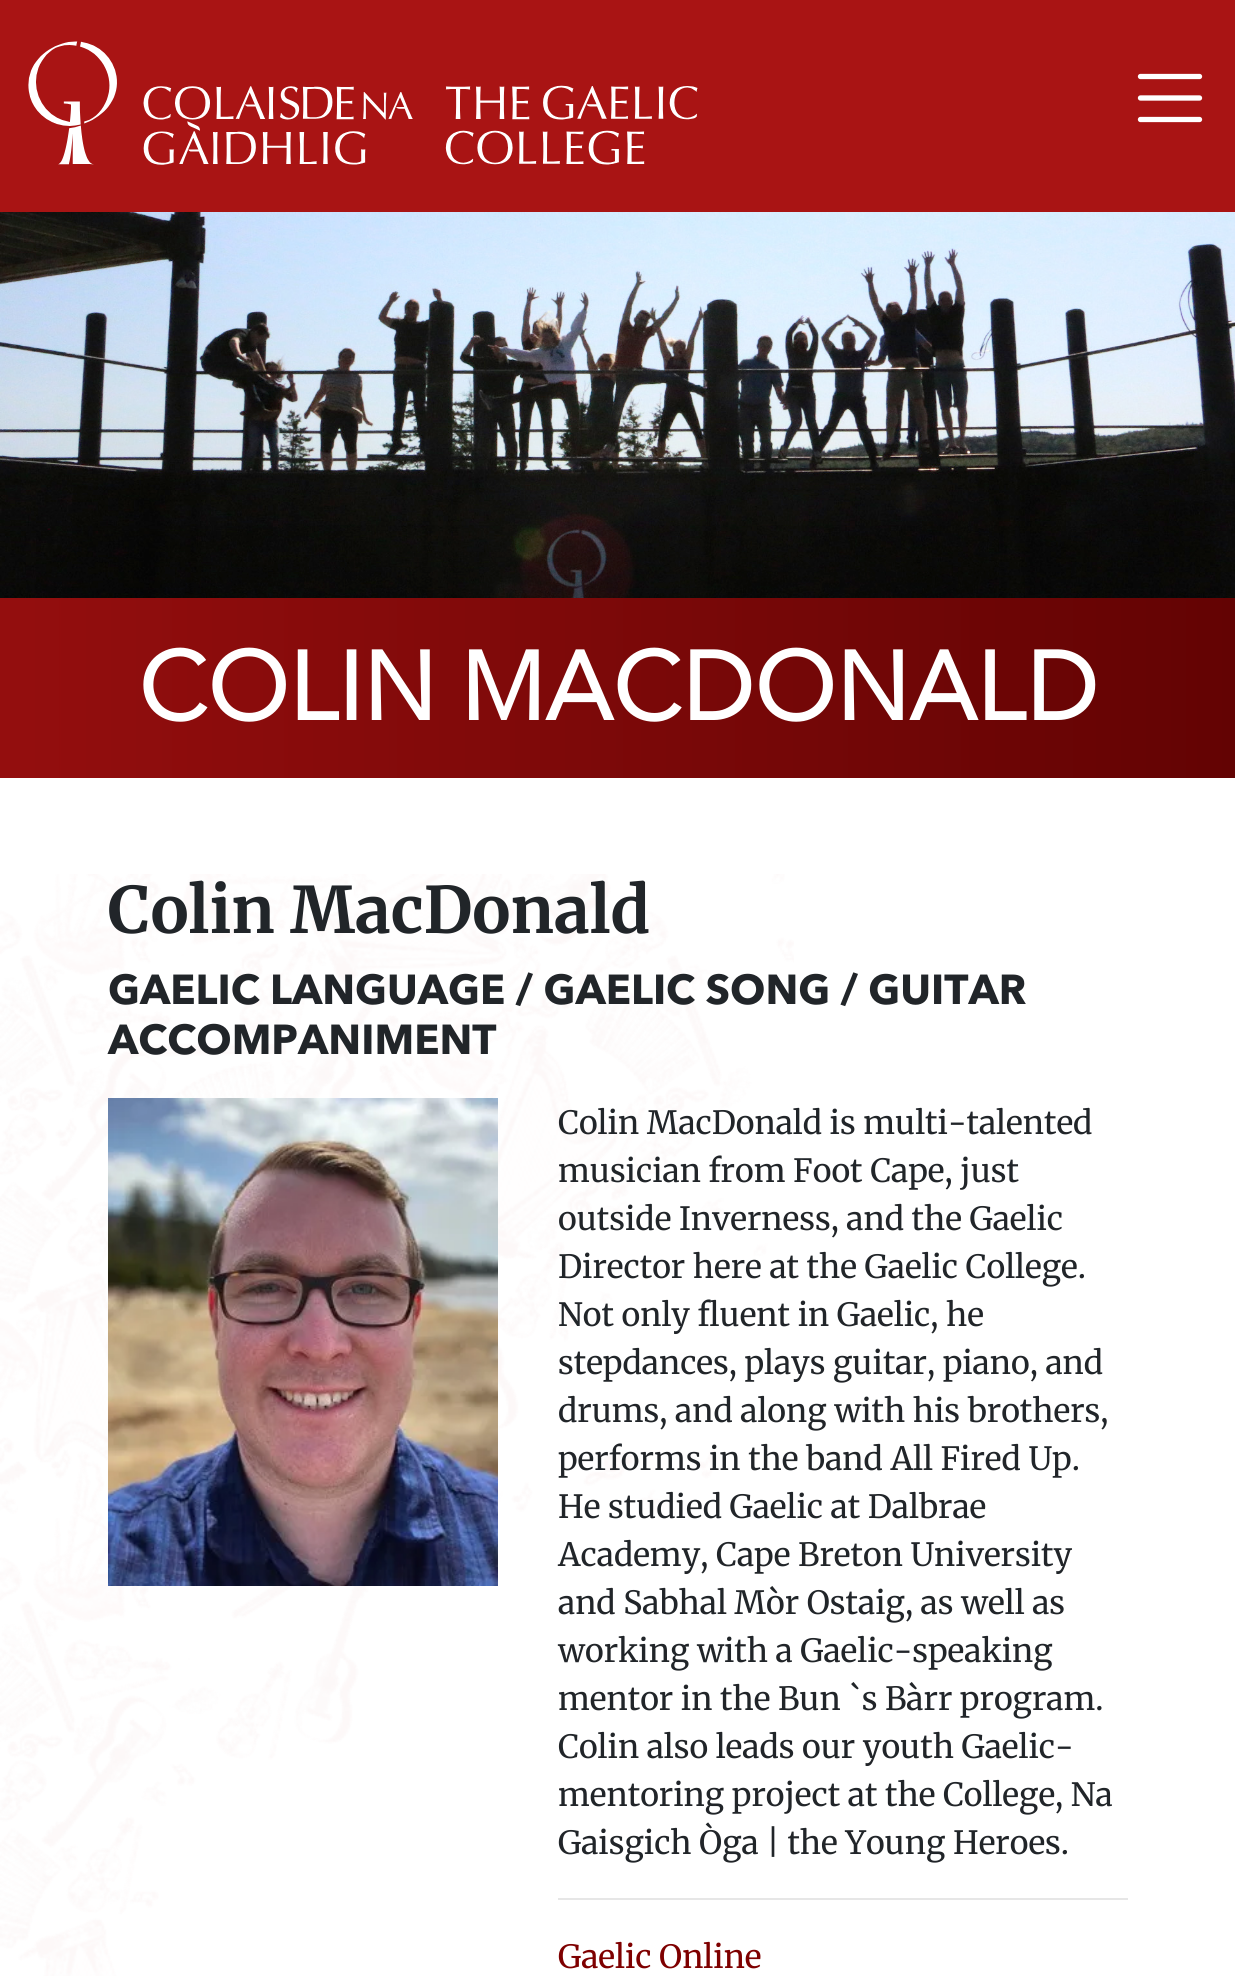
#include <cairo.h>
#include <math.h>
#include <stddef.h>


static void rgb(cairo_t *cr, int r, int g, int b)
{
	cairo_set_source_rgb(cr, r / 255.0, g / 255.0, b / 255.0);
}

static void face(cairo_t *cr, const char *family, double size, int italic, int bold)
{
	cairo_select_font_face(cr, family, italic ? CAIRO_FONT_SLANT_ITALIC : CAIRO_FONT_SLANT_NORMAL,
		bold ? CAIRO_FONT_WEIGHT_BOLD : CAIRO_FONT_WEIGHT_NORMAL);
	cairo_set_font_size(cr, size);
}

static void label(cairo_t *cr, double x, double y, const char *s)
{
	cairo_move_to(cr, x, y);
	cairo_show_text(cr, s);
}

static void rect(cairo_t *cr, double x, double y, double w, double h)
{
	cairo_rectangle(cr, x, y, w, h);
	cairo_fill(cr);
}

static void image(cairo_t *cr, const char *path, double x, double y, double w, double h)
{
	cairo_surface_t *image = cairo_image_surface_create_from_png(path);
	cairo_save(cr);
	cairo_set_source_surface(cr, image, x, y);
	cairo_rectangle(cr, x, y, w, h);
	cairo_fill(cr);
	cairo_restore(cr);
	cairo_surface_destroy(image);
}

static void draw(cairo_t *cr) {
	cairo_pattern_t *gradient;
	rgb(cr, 255, 255, 255);
	cairo_paint(cr);
	rgb(cr, 169, 20, 20);
	rect(cr, 0, 0, 1235, 212);
	image(cr, "image0.png", 28, 41, 670, 124);
	cairo_new_path(cr);
	cairo_move_to(cr, 1140.5, 76.5);
	cairo_line_to(cr, 1199.5, 76.5);
	cairo_move_to(cr, 1140.5, 98);
	cairo_line_to(cr, 1199.5, 98);
	cairo_move_to(cr, 1140.5, 119.5);
	cairo_line_to(cr, 1199.5, 119.5);
	rgb(cr, 255, 255, 255);
	cairo_set_line_width(cr, 5.3);
	cairo_set_line_cap(cr, CAIRO_LINE_CAP_ROUND);
	cairo_stroke(cr);
	image(cr, "image1.png", 0, 212, 1235, 386);
	gradient = cairo_pattern_create_linear(618, 494, 618, 778);
	cairo_pattern_add_color_stop_rgba(gradient, 0, 0, 0, 0, 0);
	cairo_pattern_add_color_stop_rgba(gradient, 1, 0, 0, 0, 0.5);
	cairo_set_source(cr, gradient);
	cairo_pattern_destroy(gradient);
	rect(cr, 36, 525, 961, 73);
	gradient = cairo_pattern_create_linear(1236, 688, 0, 688);
	cairo_pattern_add_color_stop_rgba(gradient, 0, 0.388, 0.012, 0.012, 1);
	cairo_pattern_add_color_stop_rgba(gradient, 1, 0.58, 0.055, 0.055, 1);
	cairo_set_source(cr, gradient);
	cairo_pattern_destroy(gradient);
	rect(cr, 0, 598, 1235, 180);
	face(cr, "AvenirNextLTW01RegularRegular", 96, 0, 1);
	rgb(cr, 255, 255, 255);
	label(cr, 138, 720, "COLIN MACDONALD");
	image(cr, "image2.png", 0, 874, 794, 1102);
	face(cr, "Merriweather", 64, 0, 1);
	rgb(cr, 33, 37, 41);
	label(cr, 108, 933, "Colin MacDonald");
	face(cr, "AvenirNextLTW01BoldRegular", 41.6, 0, 1);
	label(cr, 108, 1004, "GAELIC LANGUAGE / GAELIC SONG / GUITAR");
	label(cr, 108, 1054, "ACCOMPANIMENT");
	image(cr, "image3.png", 108, 1098, 390, 488);
	face(cr, "Merriweather", 32, 0, 0);
	label(cr, 558, 1134, "Colin MacDonald is multi-talented");
	label(cr, 558, 1182, "musician from Foot Cape, just");
	label(cr, 558, 1230, "outside Inverness, and the Gaelic");
	label(cr, 558, 1278, "Director here at the Gaelic College.");
	label(cr, 558, 1326, "Not only fluent in Gaelic, he");
	label(cr, 558, 1374, "stepdances, plays guitar, piano, and");
	label(cr, 558, 1422, "drums, and along with his brothers,");
	label(cr, 558, 1470, "performs in the band All Fired Up.");
	label(cr, 558, 1518, "He studied Gaelic at Dalbrae");
	label(cr, 558, 1566, "Academy, Cape Breton University");
	label(cr, 558, 1614, "and Sabhal Mòr Ostaig, as well as");
	label(cr, 558, 1662, "working with a Gaelic-speaking");
	label(cr, 558, 1710, "mentor in the Bun `s Bàrr program.");
	label(cr, 558, 1758, "Colin also leads our youth Gaelic-");
	label(cr, 558, 1806, "mentoring project at the College, Na");
	label(cr, 558, 1854, "Gaisgich Òga | the Young Heroes.");
	rgb(cr, 230, 230, 230);
	rect(cr, 558, 1898, 570, 2);
	rgb(cr, 126, 0, 0);
	label(cr, 558, 1968, "Gaelic Online");
}

int main(void) {
	cairo_surface_t *surface = cairo_image_surface_create(CAIRO_FORMAT_RGB24, 1235, 1976);
	cairo_t *cr = cairo_create(surface);
	cairo_font_options_t *options = cairo_font_options_create();
	cairo_font_options_set_hint_metrics(options, CAIRO_HINT_METRICS_OFF);
	cairo_font_options_set_hint_style(options, CAIRO_HINT_STYLE_NONE);
	cairo_set_font_options(cr, options);
	cairo_set_miter_limit(cr, 4);
	draw(cr);
	cairo_surface_write_to_png(surface, "render.png");
	cairo_font_options_destroy(options);
	cairo_destroy(cr);
	cairo_surface_destroy(surface);
	return 0;
}
